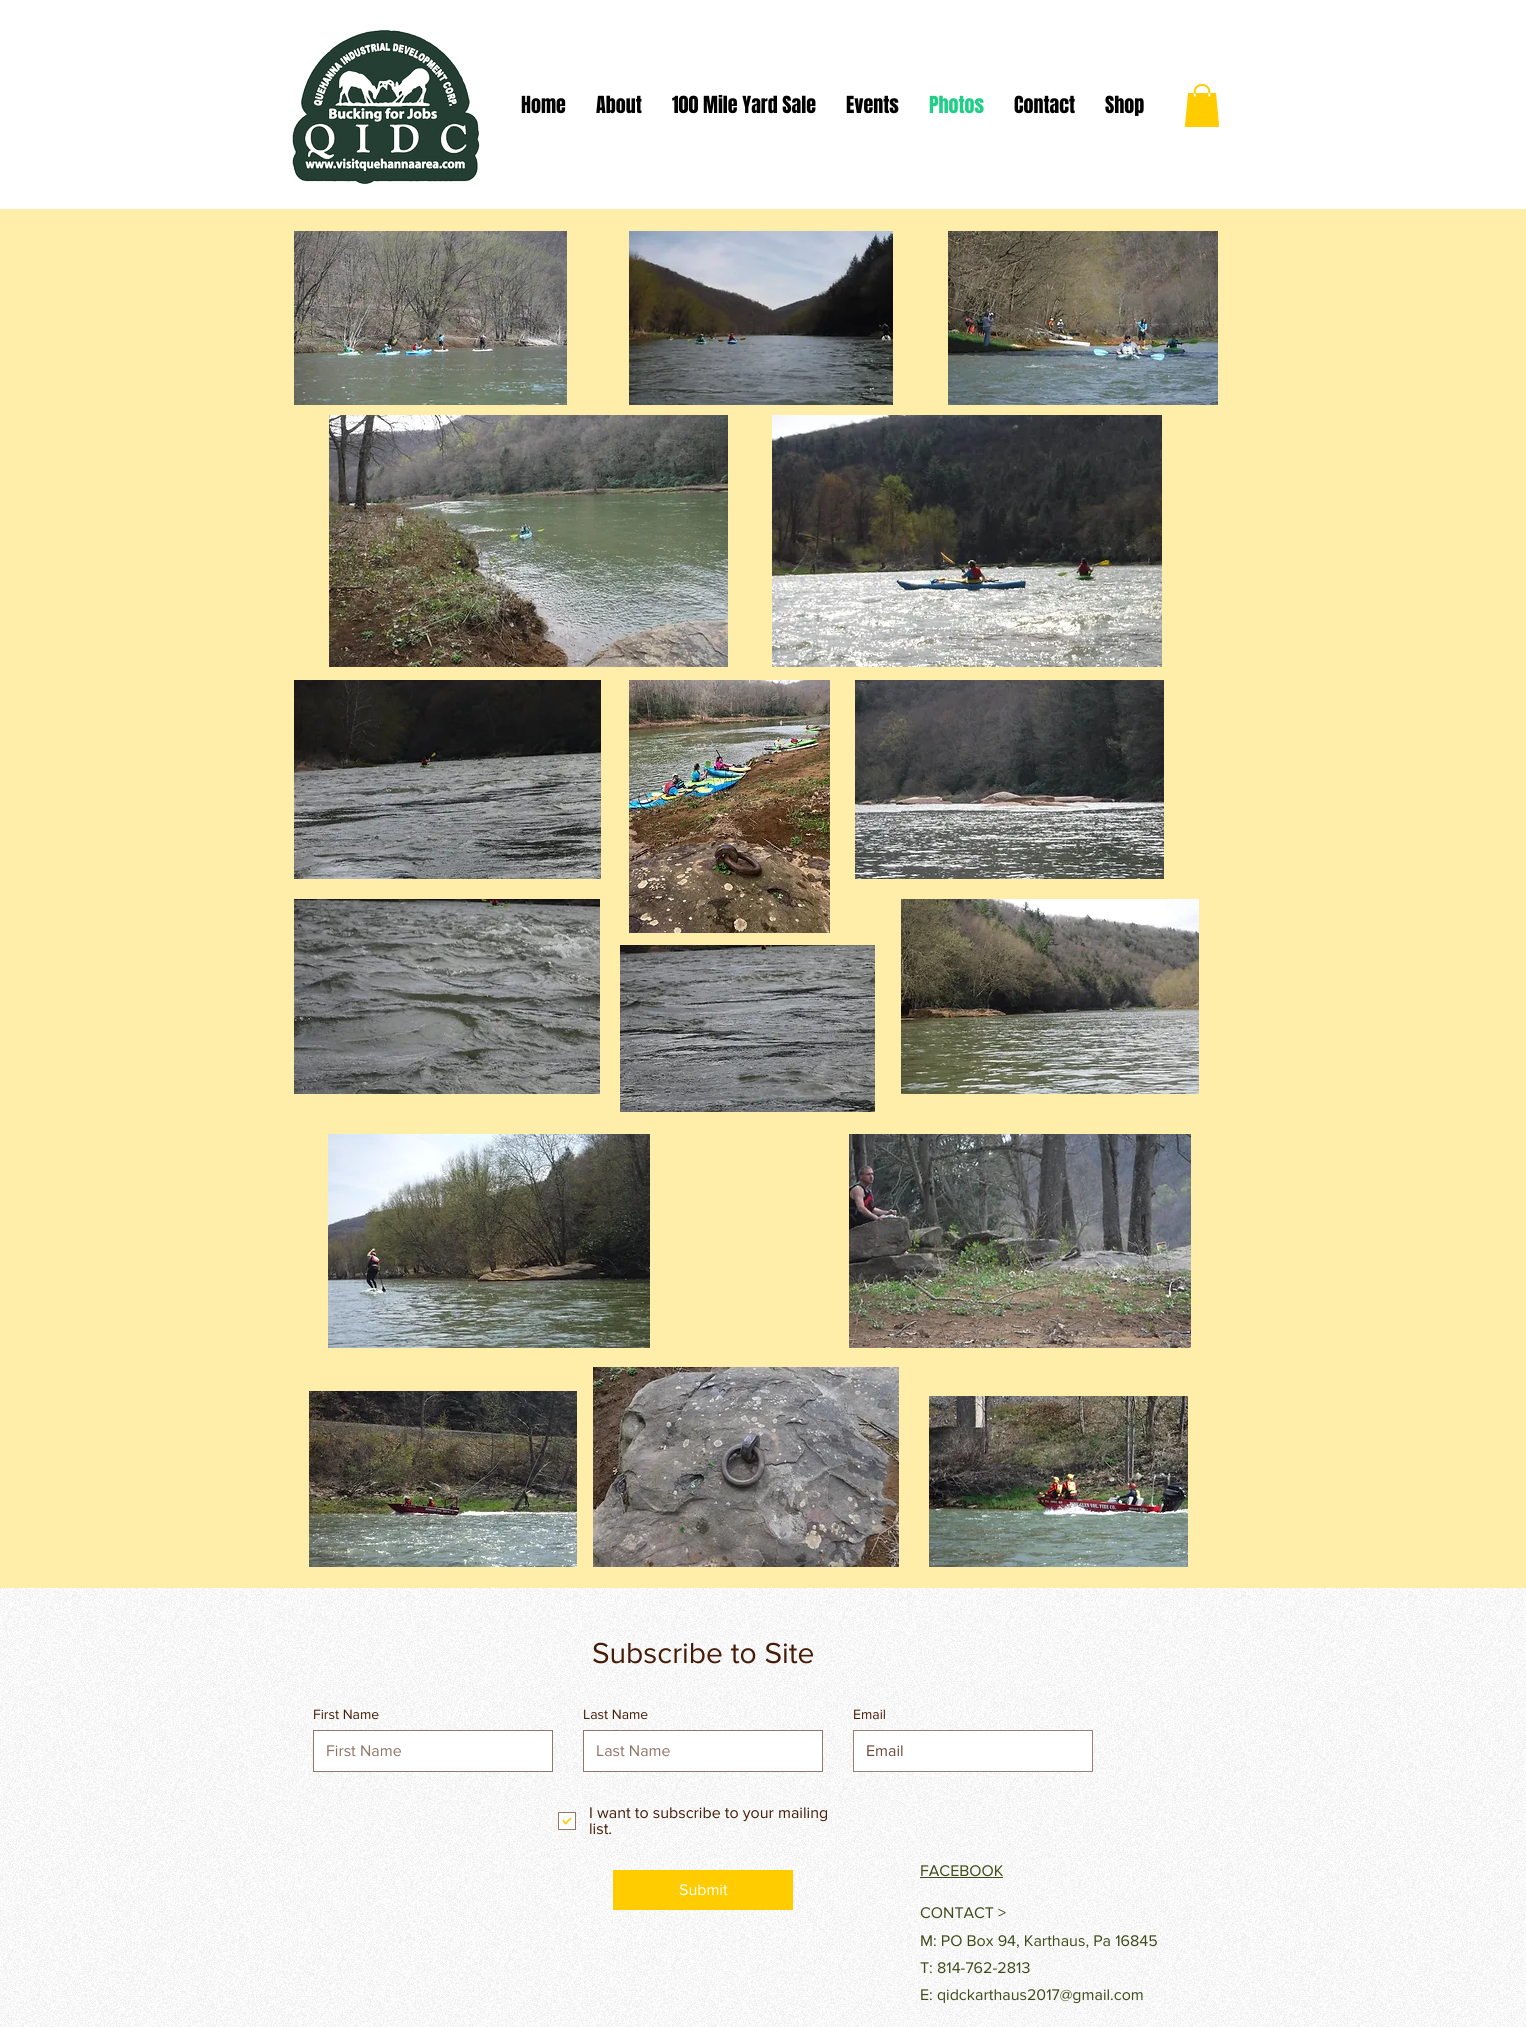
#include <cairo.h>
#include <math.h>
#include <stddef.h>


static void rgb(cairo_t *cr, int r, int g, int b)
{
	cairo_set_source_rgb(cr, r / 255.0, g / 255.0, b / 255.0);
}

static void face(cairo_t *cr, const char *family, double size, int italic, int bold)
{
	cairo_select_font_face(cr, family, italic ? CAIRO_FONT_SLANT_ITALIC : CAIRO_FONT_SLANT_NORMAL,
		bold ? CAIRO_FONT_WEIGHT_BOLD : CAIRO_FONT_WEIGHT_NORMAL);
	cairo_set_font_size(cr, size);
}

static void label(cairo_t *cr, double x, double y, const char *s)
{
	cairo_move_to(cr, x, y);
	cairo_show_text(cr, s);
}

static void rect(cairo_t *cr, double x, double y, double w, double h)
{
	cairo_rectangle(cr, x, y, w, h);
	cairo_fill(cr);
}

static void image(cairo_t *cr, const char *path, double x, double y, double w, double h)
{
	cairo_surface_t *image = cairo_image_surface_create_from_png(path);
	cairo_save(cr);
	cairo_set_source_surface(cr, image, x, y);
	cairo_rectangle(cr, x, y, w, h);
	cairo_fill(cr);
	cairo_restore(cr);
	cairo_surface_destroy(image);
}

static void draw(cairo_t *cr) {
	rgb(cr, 255, 238, 170);
	cairo_paint(cr);
	rgb(cr, 255, 255, 255);
	rect(cr, 0, 0, 1526, 209);
	image(cr, "image0.png", 292, 30, 188, 154);
	face(cr, "Anton", 20, 0, 0);
	rgb(cr, 0, 0, 0);
	label(cr, 521, 113, "Home");
	label(cr, 596, 113, "About");
	label(cr, 672, 113, "100 Mile Yard Sale");
	label(cr, 846, 113, "Events");
	rgb(cr, 32, 206, 136);
	label(cr, 929, 113, "Photos");
	rgb(cr, 0, 0, 0);
	label(cr, 1014, 113, "Contact");
	label(cr, 1105, 113, "Shop");
	image(cr, "image1.png", 1184, 84, 36, 43);
	image(cr, "image2.png", 294, 231, 273, 174);
	image(cr, "image3.png", 629, 231, 264, 174);
	image(cr, "image4.png", 948, 231, 270, 174);
	image(cr, "image5.png", 329, 415, 399, 252);
	image(cr, "image6.png", 772, 415, 390, 252);
	image(cr, "image7.png", 294, 680, 307, 199);
	image(cr, "image8.png", 629, 680, 201, 253);
	image(cr, "image9.png", 855, 680, 309, 199);
	image(cr, "image10.png", 294, 899, 306, 195);
	image(cr, "image11.png", 620, 945, 255, 167);
	image(cr, "image12.png", 901, 899, 298, 195);
	image(cr, "image13.png", 328, 1134, 322, 214);
	image(cr, "image14.png", 849, 1134, 342, 214);
	image(cr, "image15.png", 309, 1391, 268, 176);
	image(cr, "image16.png", 593, 1367, 306, 200);
	image(cr, "image17.png", 929, 1396, 259, 171);
	rgb(cr, 255, 255, 255);
	rect(cr, 0, 1588, 1526, 439);
	image(cr, "image18.png", 0, 1588, 1526, 439);
	face(cr, "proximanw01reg", 30, 0, 0);
	rgb(cr, 68, 28, 8);
	label(cr, 592, 1663, "Subscribe to Site");
	face(cr, "proximanw01reg", 14, 0, 0);
	label(cr, 313, 1719, "First Name");
	rgb(cr, 255, 255, 255);
	cairo_rectangle(cr, 313.5, 1730.5, 239, 41);
	cairo_fill_preserve(cr);
	rgb(cr, 143, 119, 107);
	cairo_set_line_width(cr, 1);
	cairo_stroke(cr);
	face(cr, "proximanw01reg", 16, 0, 0);
	rgb(cr, 143, 115, 101);
	label(cr, 326, 1756, "First Name");
	face(cr, "proximanw01reg", 14, 0, 0);
	rgb(cr, 68, 28, 8);
	label(cr, 583, 1719, "Last Name");
	rgb(cr, 255, 255, 255);
	cairo_rectangle(cr, 583.5, 1730.5, 239, 41);
	cairo_fill_preserve(cr);
	rgb(cr, 143, 119, 107);
	cairo_stroke(cr);
	face(cr, "proximanw01reg", 16, 0, 0);
	rgb(cr, 143, 115, 101);
	label(cr, 596, 1756, "Last Name");
	face(cr, "proximanw01reg", 14, 0, 0);
	rgb(cr, 68, 28, 8);
	label(cr, 853, 1719, "Email");
	rgb(cr, 255, 255, 255);
	cairo_rectangle(cr, 853.5, 1730.5, 239, 41);
	cairo_fill_preserve(cr);
	rgb(cr, 152, 130, 119);
	cairo_stroke(cr);
	face(cr, "proximanw01reg", 16, 0, 0);
	rgb(cr, 106, 75, 59);
	label(cr, 866, 1756, "Email");
	rgb(cr, 255, 255, 255);
	cairo_rectangle(cr, 558.5, 1812.5, 17, 17);
	cairo_fill_preserve(cr);
	rgb(cr, 143, 119, 107);
	cairo_stroke(cr);
	rgb(cr, 68, 28, 8);
	label(cr, 589, 1818, "I want to subscribe to your mailing");
	label(cr, 589, 1834, "list.");
	image(cr, "image19.png", 562, 1817, 10, 8);
	rgb(cr, 255, 204, 0);
	rect(cr, 613, 1870, 180, 40);
	rgb(cr, 255, 255, 255);
	label(cr, 679, 1895, "Submit");
	rgb(cr, 61, 73, 22);
	label(cr, 920, 1876, "FACEBOOK");
	rect(cr, 920, 1877, 83, 1);
	label(cr, 920, 1918, "CONTACT >");
	label(cr, 920, 1946, "M: PO Box 94, Karthaus, Pa 16845");
	label(cr, 920, 1973, "T: 814-762-2813");
	label(cr, 920, 2000, "E: qidckarthaus2017@gmail.com");
}

int main(void) {
	cairo_surface_t *surface = cairo_image_surface_create(CAIRO_FORMAT_RGB24, 1526, 2027);
	cairo_t *cr = cairo_create(surface);
	cairo_font_options_t *options = cairo_font_options_create();
	cairo_font_options_set_hint_metrics(options, CAIRO_HINT_METRICS_OFF);
	cairo_font_options_set_hint_style(options, CAIRO_HINT_STYLE_NONE);
	cairo_set_font_options(cr, options);
	cairo_set_miter_limit(cr, 4);
	draw(cr);
	cairo_surface_write_to_png(surface, "render.png");
	cairo_font_options_destroy(options);
	cairo_destroy(cr);
	cairo_surface_destroy(surface);
	return 0;
}
